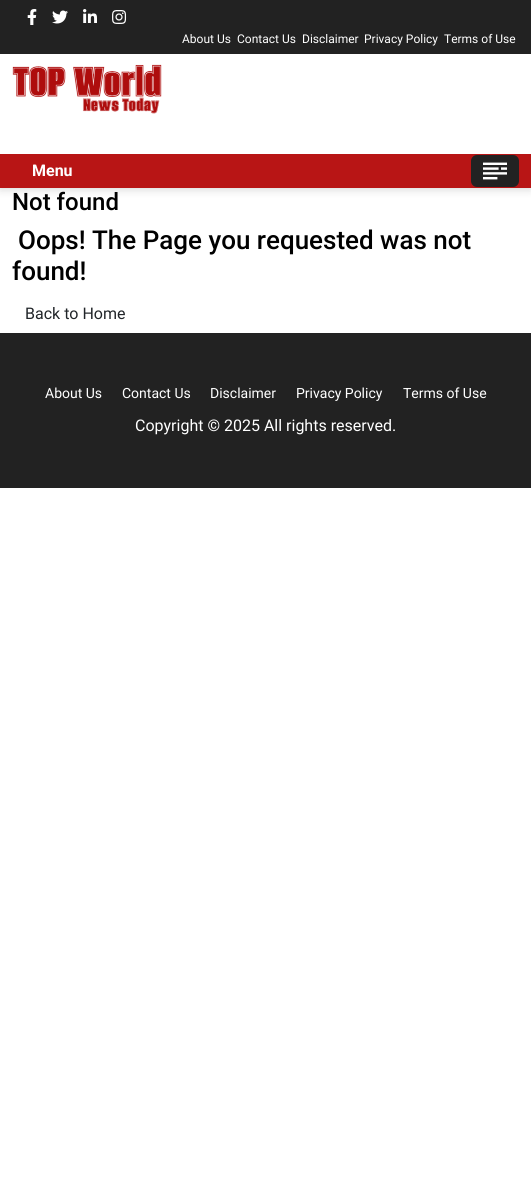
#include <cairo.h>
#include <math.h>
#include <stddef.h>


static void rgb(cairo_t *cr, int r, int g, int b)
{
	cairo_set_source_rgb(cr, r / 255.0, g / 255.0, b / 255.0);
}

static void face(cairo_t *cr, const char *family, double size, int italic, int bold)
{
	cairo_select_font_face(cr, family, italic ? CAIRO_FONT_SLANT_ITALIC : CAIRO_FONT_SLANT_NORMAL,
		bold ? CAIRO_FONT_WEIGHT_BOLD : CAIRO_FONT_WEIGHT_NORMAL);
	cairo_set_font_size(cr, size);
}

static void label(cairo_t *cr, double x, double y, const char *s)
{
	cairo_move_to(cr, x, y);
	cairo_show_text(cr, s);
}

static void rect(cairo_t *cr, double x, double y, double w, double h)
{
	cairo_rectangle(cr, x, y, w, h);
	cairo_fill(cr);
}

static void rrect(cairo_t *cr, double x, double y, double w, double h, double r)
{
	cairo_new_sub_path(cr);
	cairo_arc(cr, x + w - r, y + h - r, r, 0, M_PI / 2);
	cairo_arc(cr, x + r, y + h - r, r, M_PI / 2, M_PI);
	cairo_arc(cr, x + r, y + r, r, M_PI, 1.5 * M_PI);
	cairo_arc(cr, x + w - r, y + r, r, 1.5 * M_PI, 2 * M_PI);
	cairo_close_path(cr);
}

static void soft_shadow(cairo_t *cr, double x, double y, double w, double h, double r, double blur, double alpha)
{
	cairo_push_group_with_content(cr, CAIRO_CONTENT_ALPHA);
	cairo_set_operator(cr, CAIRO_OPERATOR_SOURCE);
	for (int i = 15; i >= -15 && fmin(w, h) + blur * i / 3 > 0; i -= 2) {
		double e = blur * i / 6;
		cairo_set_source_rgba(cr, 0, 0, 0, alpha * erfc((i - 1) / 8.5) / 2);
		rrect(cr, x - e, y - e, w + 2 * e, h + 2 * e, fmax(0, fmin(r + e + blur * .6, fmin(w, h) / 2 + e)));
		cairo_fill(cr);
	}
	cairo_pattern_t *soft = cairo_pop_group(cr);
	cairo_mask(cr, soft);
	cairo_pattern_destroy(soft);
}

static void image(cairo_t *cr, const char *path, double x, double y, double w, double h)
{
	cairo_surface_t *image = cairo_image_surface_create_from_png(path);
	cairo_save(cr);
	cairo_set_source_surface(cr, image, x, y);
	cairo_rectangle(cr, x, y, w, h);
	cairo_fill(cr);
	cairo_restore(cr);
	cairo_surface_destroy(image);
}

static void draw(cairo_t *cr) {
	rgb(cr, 255, 255, 255);
	cairo_paint(cr);
	cairo_save(cr);
	cairo_rectangle(cr, 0, 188, 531, 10);
	cairo_clip(cr);
	rgb(cr, 204, 204, 204);
	soft_shadow(cr, 0, 0, 531, 188, 0, 5, 1);
	cairo_restore(cr);
	rgb(cr, 34, 34, 34);
	rect(cr, 0, 0, 531, 54);
	image(cr, "image0.png", 27, 9, 10, 16);
	image(cr, "image1.png", 52, 10, 16, 14);
	image(cr, "image2.png", 83, 9, 14, 14);
	image(cr, "image3.png", 112, 10, 15, 14);
	face(cr, "Roboto", 12, 0, 0);
	rgb(cr, 255, 255, 255);
	label(cr, 182, 43, "About Us");
	label(cr, 237, 43, "Contact Us");
	label(cr, 302, 43, "Disclaimer");
	label(cr, 364, 43, "Privacy Policy");
	label(cr, 444, 43, "Terms of Use");
	image(cr, "image4.png", 12, 64, 150, 50);
	rgb(cr, 184, 21, 21);
	rect(cr, 0, 154, 531, 34);
	face(cr, "Roboto", 16, 0, 1);
	rgb(cr, 255, 255, 255);
	label(cr, 32, 176, "Menu");
	rgb(cr, 34, 34, 34);
	rrect(cr, 471, 155, 48, 32, 6);
	cairo_fill(cr);
	image(cr, "image5.png", 483, 162, 24, 18);
	face(cr, "Roboto Medium", 24, 0, 0);
	rgb(cr, 0, 0, 0);
	label(cr, 12, 210, "Not found");
	face(cr, "Roboto Medium", 26, 0, 0);
	label(cr, 18, 249, "Oops! The Page you requested was not");
	label(cr, 12, 280, "found!");
	face(cr, "Roboto", 16, 0, 0);
	rgb(cr, 33, 37, 41);
	label(cr, 25, 319, "Back to Home");
	rgb(cr, 34, 34, 34);
	rect(cr, 0, 333, 531, 155);
	face(cr, "Roboto", 14, 0, 0);
	rgb(cr, 255, 255, 255);
	label(cr, 45, 398, "About Us");
	label(cr, 122, 398, "Contact Us");
	label(cr, 210, 398, "Disclaimer");
	label(cr, 296, 398, "Privacy Policy");
	label(cr, 403, 398, "Terms of Use");
	face(cr, "Roboto", 16, 0, 0);
	label(cr, 135, 431, "Copyright © 2025 All rights reserved.");
}

int main(void) {
	cairo_surface_t *surface = cairo_image_surface_create(CAIRO_FORMAT_RGB24, 531, 1188);
	cairo_t *cr = cairo_create(surface);
	cairo_font_options_t *options = cairo_font_options_create();
	cairo_font_options_set_hint_metrics(options, CAIRO_HINT_METRICS_OFF);
	cairo_font_options_set_hint_style(options, CAIRO_HINT_STYLE_NONE);
	cairo_set_font_options(cr, options);
	cairo_set_miter_limit(cr, 4);
	draw(cr);
	cairo_surface_write_to_png(surface, "render.png");
	cairo_font_options_destroy(options);
	cairo_destroy(cr);
	cairo_surface_destroy(surface);
	return 0;
}
